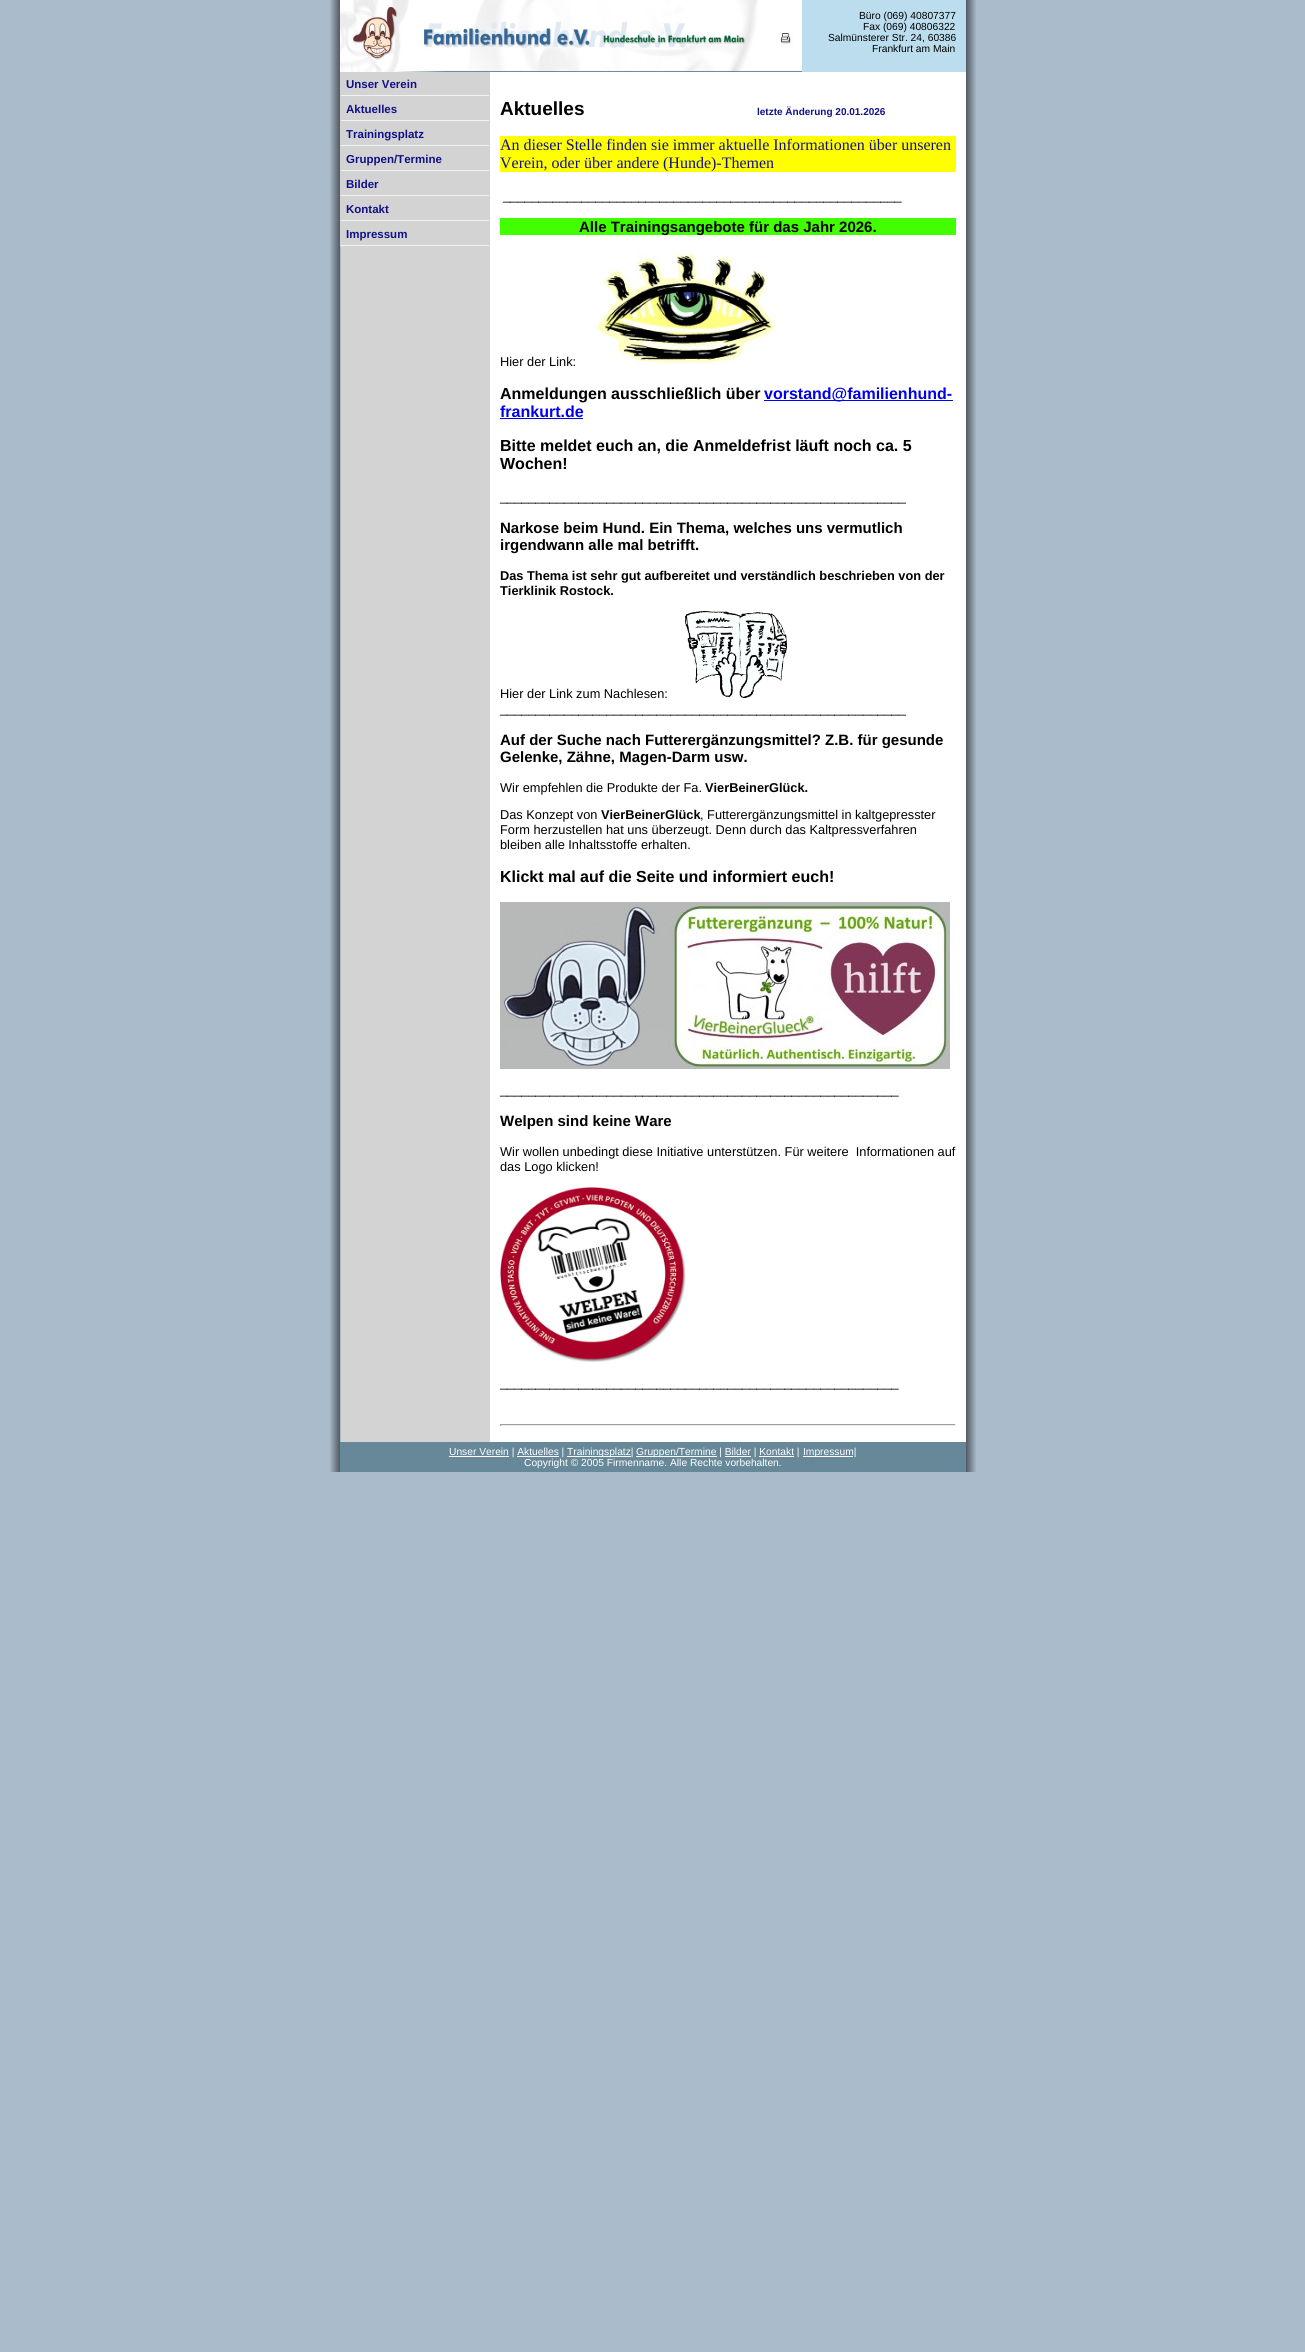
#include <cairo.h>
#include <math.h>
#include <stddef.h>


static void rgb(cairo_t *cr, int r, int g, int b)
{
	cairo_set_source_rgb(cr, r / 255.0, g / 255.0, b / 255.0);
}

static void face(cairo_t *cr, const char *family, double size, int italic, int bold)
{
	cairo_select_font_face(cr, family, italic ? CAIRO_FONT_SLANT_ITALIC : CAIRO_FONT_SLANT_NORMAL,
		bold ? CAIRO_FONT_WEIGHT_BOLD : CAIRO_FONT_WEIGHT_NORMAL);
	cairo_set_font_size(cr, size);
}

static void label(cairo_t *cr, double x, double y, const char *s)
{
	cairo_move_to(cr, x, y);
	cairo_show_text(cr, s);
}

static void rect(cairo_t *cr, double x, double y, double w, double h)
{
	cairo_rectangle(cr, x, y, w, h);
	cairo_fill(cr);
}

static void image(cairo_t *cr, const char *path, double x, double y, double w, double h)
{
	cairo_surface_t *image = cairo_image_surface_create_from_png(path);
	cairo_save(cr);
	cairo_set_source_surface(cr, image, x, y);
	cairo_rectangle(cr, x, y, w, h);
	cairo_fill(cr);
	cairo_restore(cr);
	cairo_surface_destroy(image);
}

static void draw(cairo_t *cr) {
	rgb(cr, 170, 187, 204);
	cairo_paint(cr);
	image(cr, "image0.png", 330, 0, 646, 1472);
	rgb(cr, 187, 221, 238);
	rect(cr, 802, 0, 164, 72);
	image(cr, "image1.png", 340, 0, 462, 72);
	face(cr, "Liberation Sans", 10.25, 0, 0);
	rgb(cr, 0, 0, 0);
	label(cr, 859, 19, "Büro (069) 40807377");
	label(cr, 863, 30, "Fax (069) 40806322");
	label(cr, 828, 41, "Salmünsterer Str. 24, 60386");
	label(cr, 872, 52, "Frankfurt am Main");
	rgb(cr, 211, 211, 211);
	rect(cr, 340, 72, 1, 175);
	rgb(cr, 242, 242, 242);
	rect(cr, 341, 95, 148, 1);
	face(cr, "Liberation Sans", 11.5, 0, 1);
	rgb(cr, 17, 17, 136);
	label(cr, 346, 88, "Unser Verein");
	rgb(cr, 242, 242, 242);
	rect(cr, 341, 120, 148, 1);
	rgb(cr, 17, 17, 136);
	label(cr, 346, 113, "Aktuelles");
	rgb(cr, 242, 242, 242);
	rect(cr, 341, 145, 148, 1);
	rgb(cr, 17, 17, 136);
	label(cr, 346, 138, "Trainingsplatz");
	rgb(cr, 242, 242, 242);
	rect(cr, 341, 170, 148, 1);
	rgb(cr, 17, 17, 136);
	label(cr, 346, 163, "Gruppen/Termine");
	rgb(cr, 242, 242, 242);
	rect(cr, 341, 195, 148, 1);
	rgb(cr, 17, 17, 136);
	label(cr, 346, 188, "Bilder");
	rgb(cr, 242, 242, 242);
	rect(cr, 341, 220, 148, 1);
	rgb(cr, 17, 17, 136);
	label(cr, 346, 213, "Kontakt");
	rgb(cr, 242, 242, 242);
	rect(cr, 341, 245, 148, 1);
	rgb(cr, 17, 17, 136);
	label(cr, 346, 238, "Impressum");
	rgb(cr, 255, 255, 255);
	rect(cr, 490, 72, 476, 1370);
	face(cr, "Liberation Sans", 19, 0, 1);
	rgb(cr, 0, 0, 0);
	label(cr, 500, 115, "Aktuelles");
	face(cr, "Liberation Sans", 10, 0, 1);
	rgb(cr, 17, 17, 136);
	label(cr, 757, 115, "letzte Änderung 20.01.2026");
	rgb(cr, 255, 255, 0);
	rect(cr, 500, 136, 456, 36);
	face(cr, "Liberation Serif", 16, 0, 0);
	rgb(cr, 17, 17, 136);
	label(cr, 500, 150, "An dieser Stelle finden sie immer aktuelle Informationen über unseren");
	label(cr, 500, 168, "Verein, oder über andere (Hunde)-Themen");
	face(cr, "Liberation Sans", 12.8, 0, 0);
	rgb(cr, 0, 0, 0);
	label(cr, 503, 200, "________________________________________________________");
	rgb(cr, 65, 255, 0);
	rect(cr, 500, 218, 456, 17);
	face(cr, "Liberation Sans", 15, 0, 1);
	rgb(cr, 0, 0, 0);
	label(cr, 579, 232, "Alle Trainingsangebote für das Jahr 2026.");
	face(cr, "Liberation Sans", 12.8, 0, 0);
	label(cr, 500, 366, "Hier der Link:");
	image(cr, "image2.png", 593, 250, 186, 115);
	face(cr, "Liberation Sans", 16, 0, 1);
	label(cr, 500, 399, "Anmeldungen ausschließlich über");
	rgb(cr, 0, 0, 238);
	rect(cr, 764, 400, 189, 1);
	label(cr, 764, 399, "vorstand@familienhund-");
	label(cr, 500, 417, "frankurt.de");
	rect(cr, 500, 418, 83, 1);
	rgb(cr, 0, 0, 0);
	label(cr, 500, 451, "Bitte meldet euch an, die Anmeldefrist läuft noch ca. 5");
	label(cr, 500, 469, "Wochen!");
	face(cr, "Liberation Sans", 12.8, 0, 0);
	label(cr, 500, 501, "_________________________________________________________");
	face(cr, "Liberation Sans", 15, 0, 1);
	label(cr, 500, 533, "Narkose beim Hund. Ein Thema, welches uns vermutlich");
	label(cr, 500, 550, "irgendwann alle mal betrifft.");
	face(cr, "Liberation Sans", 12.8, 0, 1);
	label(cr, 500, 580, "Das Thema ist sehr gut aufbereitet und verständlich beschrieben von der");
	label(cr, 500, 595, "Tierklinik Rostock.");
	face(cr, "Liberation Sans", 12.8, 0, 0);
	label(cr, 500, 698, "Hier der Link zum Nachlesen:");
	image(cr, "image3.png", 685, 611, 102, 87);
	label(cr, 500, 713, "_________________________________________________________");
	face(cr, "Liberation Sans", 15, 0, 1);
	label(cr, 500, 745, "Auf der Suche nach Futterergänzungsmittel? Z.B. für gesunde");
	label(cr, 500, 762, "Gelenke, Zähne, Magen-Darm usw.");
	face(cr, "Liberation Sans", 12.8, 0, 0);
	label(cr, 500, 792, "Wir empfehlen die Produkte der Fa.");
	face(cr, "Liberation Sans", 12.8, 0, 1);
	label(cr, 705, 792, "VierBeinerGlück.");
	face(cr, "Liberation Sans", 12.8, 0, 0);
	label(cr, 500, 819, "Das Konzept von");
	face(cr, "Liberation Sans", 12.8, 0, 1);
	label(cr, 601, 819, "VierBeinerGlück");
	face(cr, "Liberation Sans", 12.8, 0, 0);
	label(cr, 700, 819, ", Futterergänzungsmittel in kaltgepresster");
	label(cr, 500, 834, "Form herzustellen hat uns überzeugt. Denn durch das Kaltpressverfahren");
	label(cr, 500, 849, "bleiben alle Inhaltsstoffe erhalten.");
	face(cr, "Liberation Sans", 16, 0, 1);
	label(cr, 500, 882, "Klickt mal auf die Seite und informiert euch!");
	image(cr, "image4.png", 500, 902, 450, 167);
	face(cr, "Liberation Sans", 12.8, 0, 0);
	label(cr, 500, 1094, "________________________________________________________");
	face(cr, "Liberation Sans", 15, 0, 1);
	label(cr, 500, 1126, "Welpen sind keine Ware");
	face(cr, "Liberation Sans", 12.8, 0, 0);
	label(cr, 500, 1156, "Wir wollen unbedingt diese Initiative unterstützen. Für weitere  Informationen auf");
	label(cr, 500, 1171, "das Logo klicken!");
	image(cr, "image5.png", 500, 1187, 186, 175);
	label(cr, 500, 1387, "________________________________________________________");
	rgb(cr, 159, 159, 159);
	rect(cr, 500, 1424, 456, 1);
	rgb(cr, 238, 238, 238);
	rect(cr, 955, 1424, 1, 2);
	rect(cr, 500, 1425, 456, 1);
	rgb(cr, 159, 159, 159);
	rect(cr, 500, 1424, 1, 2);
	rgb(cr, 102, 136, 153);
	rect(cr, 340, 1442, 626, 30);
	rgb(cr, 255, 255, 255);
	rect(cr, 449, 1456, 60, 1);
	face(cr, "Liberation Sans", 10.25, 0, 0);
	label(cr, 449, 1455, "Unser Verein | Aktuelles |");
	rect(cr, 567, 1456, 64, 1);
	label(cr, 567, 1455, "Trainingsplatz|");
	rect(cr, 636, 1456, 81, 1);
	label(cr, 636, 1455, "Gruppen/Termine | Bilder | Kontakt |");
	rect(cr, 803, 1456, 50, 1);
	label(cr, 803, 1455, "Impressum|");
	rect(cr, 517, 1456, 42, 1);
	rect(cr, 725, 1456, 26, 1);
	rect(cr, 759, 1456, 35, 1);
	label(cr, 524, 1466, "Copyright © 2005 Firmenname. Alle Rechte vorbehalten.");
}

int main(void) {
	cairo_surface_t *surface = cairo_image_surface_create(CAIRO_FORMAT_RGB24, 1305, 2352);
	cairo_t *cr = cairo_create(surface);
	cairo_font_options_t *options = cairo_font_options_create();
	cairo_font_options_set_hint_metrics(options, CAIRO_HINT_METRICS_OFF);
	cairo_font_options_set_hint_style(options, CAIRO_HINT_STYLE_NONE);
	cairo_set_font_options(cr, options);
	cairo_set_miter_limit(cr, 4);
	draw(cr);
	cairo_surface_write_to_png(surface, "render.png");
	cairo_font_options_destroy(options);
	cairo_destroy(cr);
	cairo_surface_destroy(surface);
	return 0;
}
